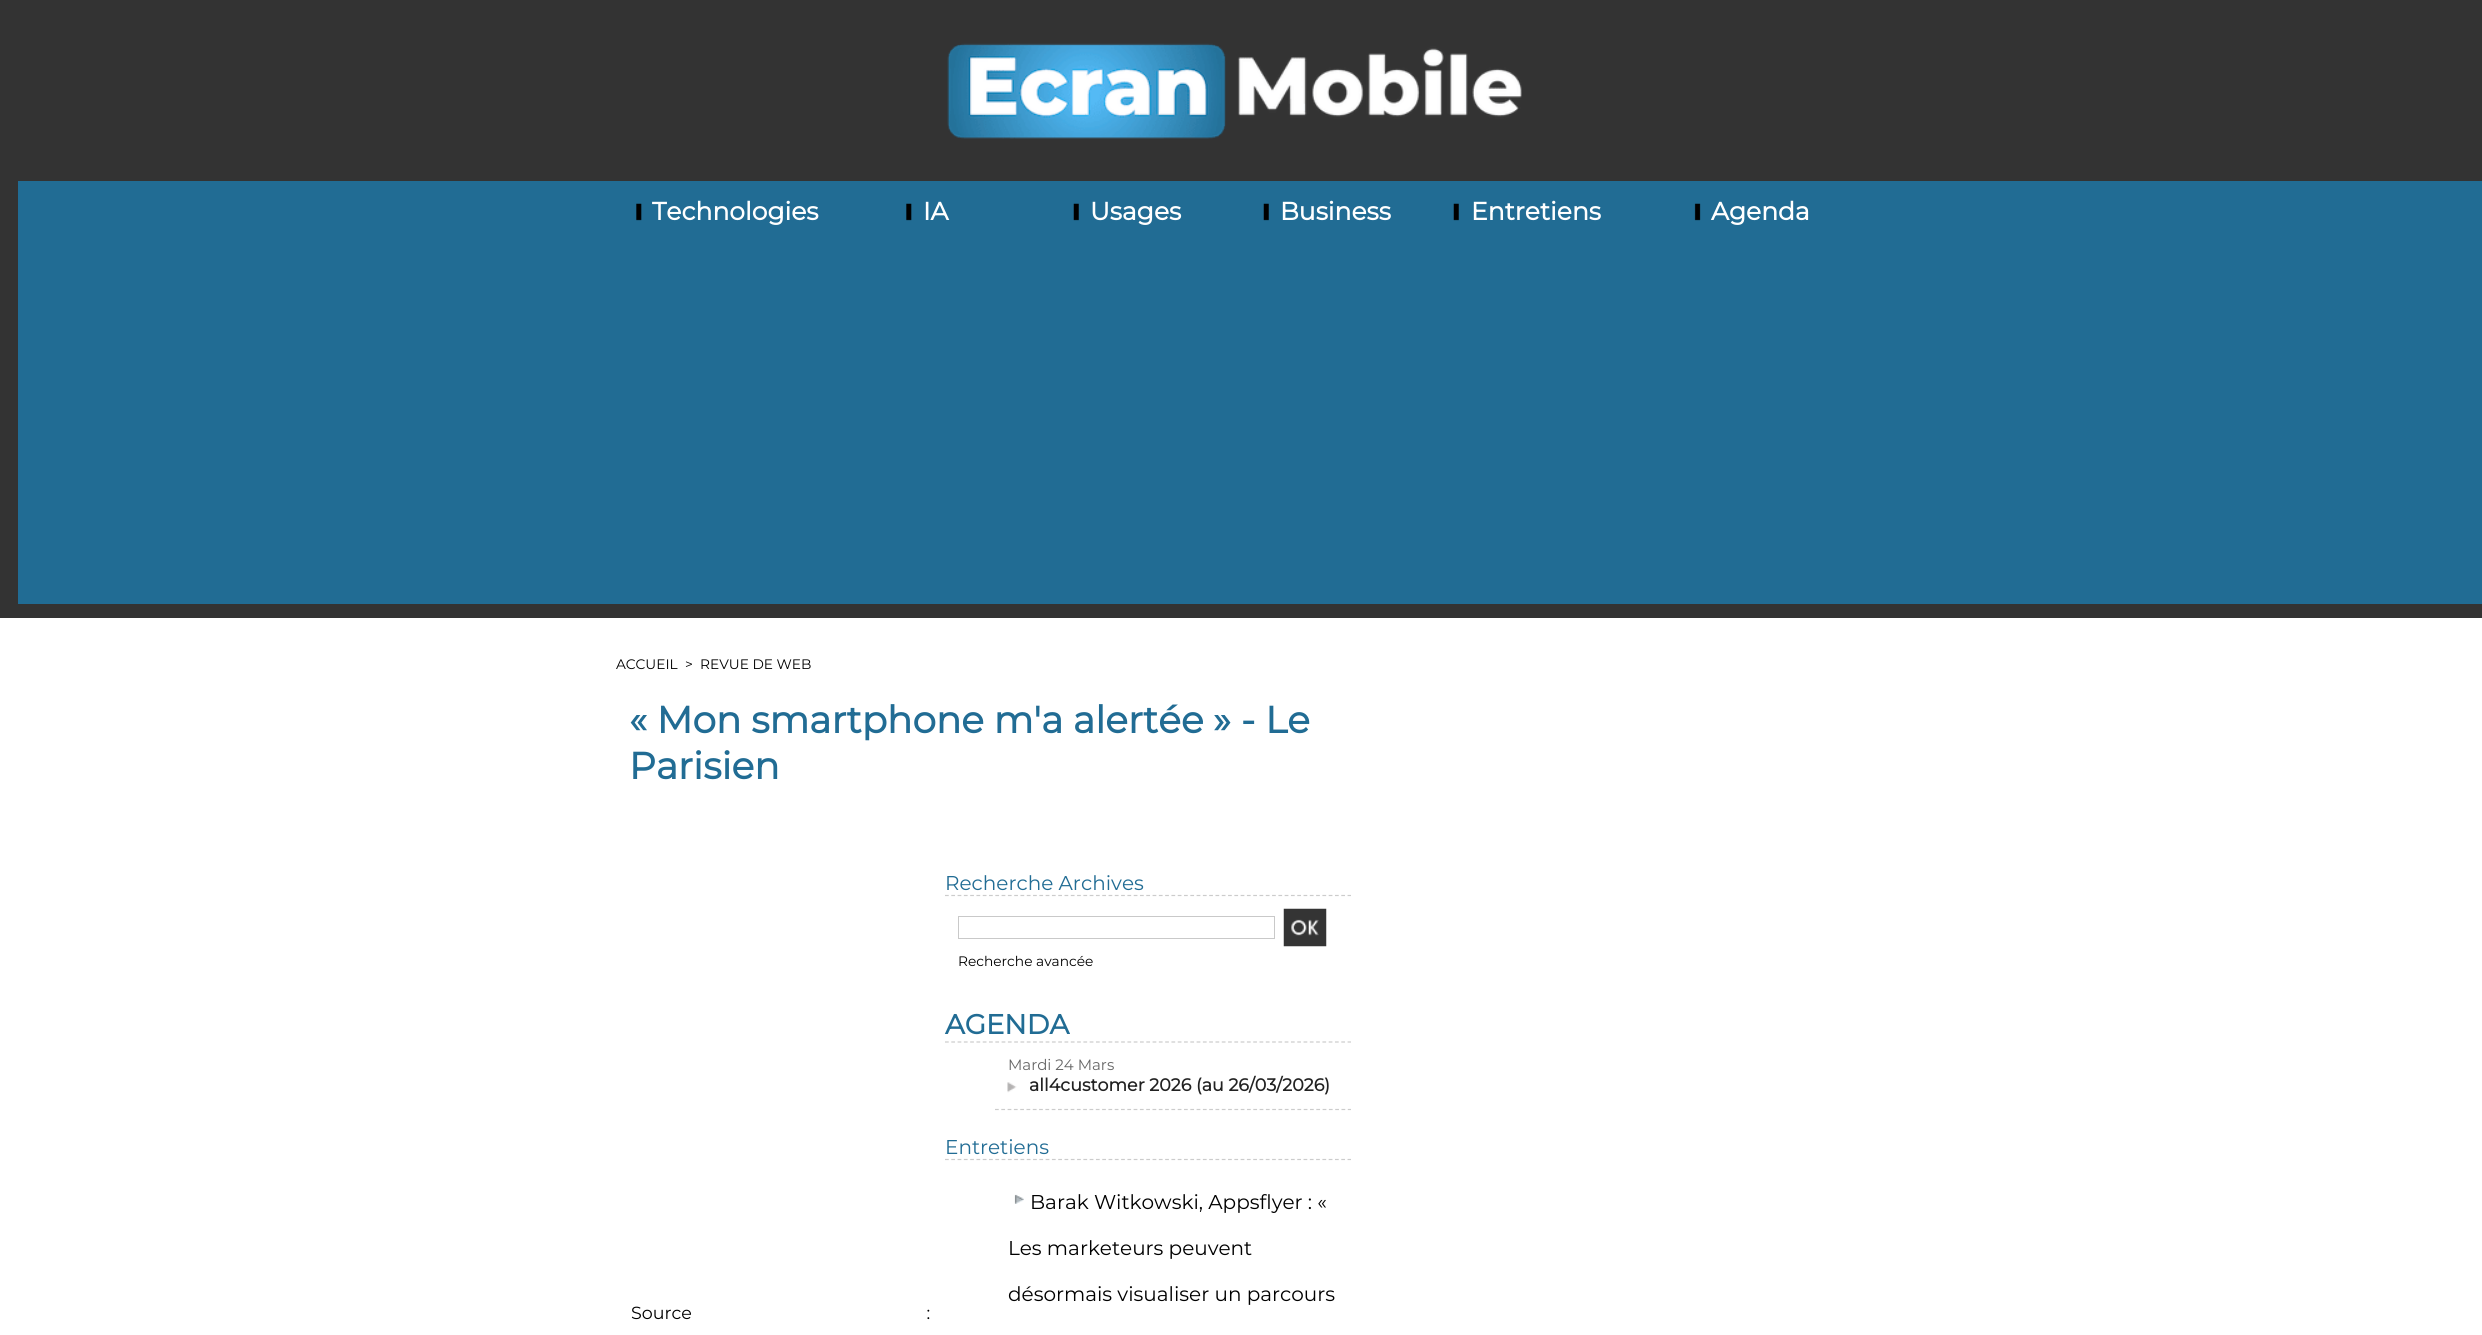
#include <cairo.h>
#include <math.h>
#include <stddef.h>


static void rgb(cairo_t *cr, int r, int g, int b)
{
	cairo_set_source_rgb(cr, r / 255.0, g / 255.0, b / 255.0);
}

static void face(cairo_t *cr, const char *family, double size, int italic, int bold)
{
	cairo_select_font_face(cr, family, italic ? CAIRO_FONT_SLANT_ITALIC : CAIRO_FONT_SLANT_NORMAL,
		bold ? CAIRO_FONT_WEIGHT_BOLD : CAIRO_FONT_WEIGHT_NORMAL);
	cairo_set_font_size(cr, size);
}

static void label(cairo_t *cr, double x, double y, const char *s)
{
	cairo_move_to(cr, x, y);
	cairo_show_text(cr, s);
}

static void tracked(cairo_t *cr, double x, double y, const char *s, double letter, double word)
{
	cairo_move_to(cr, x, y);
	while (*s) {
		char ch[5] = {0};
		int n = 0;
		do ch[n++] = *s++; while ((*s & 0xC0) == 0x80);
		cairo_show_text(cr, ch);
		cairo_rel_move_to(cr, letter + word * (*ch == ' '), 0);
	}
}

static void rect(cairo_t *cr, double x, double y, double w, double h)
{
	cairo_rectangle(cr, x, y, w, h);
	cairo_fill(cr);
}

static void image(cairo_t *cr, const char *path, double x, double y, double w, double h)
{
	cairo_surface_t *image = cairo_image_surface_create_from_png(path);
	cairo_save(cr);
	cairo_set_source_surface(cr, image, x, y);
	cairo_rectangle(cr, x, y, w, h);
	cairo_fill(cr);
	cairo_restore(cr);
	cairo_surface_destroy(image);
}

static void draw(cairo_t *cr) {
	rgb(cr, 255, 255, 255);
	cairo_paint(cr);
	rgb(cr, 51, 51, 51);
	rect(cr, 0, 0, 2482, 618);
	image(cr, "image0.png", 947, 43, 575, 96);
	rgb(cr, 33, 108, 148);
	rect(cr, 18, 181, 2464, 423);
	image(cr, "image1.png", 636, 203, 6, 18);
	face(cr, "Montserrat", 25, 0, 1);
	rgb(cr, 255, 255, 255);
	label(cr, 652, 220, "Technologies");
	image(cr, "image1.png", 906, 203, 6, 18);
	label(cr, 923, 220, "IA");
	image(cr, "image2.png", 1073, 203, 6, 18);
	label(cr, 1090, 220, "Usages");
	image(cr, "image2.png", 1263, 203, 6, 18);
	label(cr, 1280, 220, "Business");
	image(cr, "image2.png", 1453, 203, 6, 18);
	label(cr, 1471, 220, "Entretiens");
	image(cr, "image3.png", 1694, 203, 7, 18);
	label(cr, 1711, 220, "Agenda");
	face(cr, "Montserrat Thin", 13.75, 0, 0);
	rgb(cr, 0, 0, 0);
	label(cr, 616, 669, "ACCUEIL");
	label(cr, 685, 669, ">");
	label(cr, 700, 669, "REVUE DE WEB");
	face(cr, "Montserrat", 37.5, 0, 1);
	rgb(cr, 33, 108, 148);
	label(cr, 629, 733, "« Mon smartphone m'a alertée » - Le");
	label(cr, 629, 779, "Parisien");
	cairo_new_path(cr);
	cairo_move_to(cr, 945, 895.5);
	cairo_line_to(cr, 1351, 895.5);
	rgb(cr, 204, 204, 204);
	cairo_set_line_width(cr, 1.2);
	cairo_set_dash(cr, (double[]){3.75, 2.54}, 2, 0);
	cairo_stroke(cr);
	face(cr, "Montserrat Thin", 20, 0, 0);
	rgb(cr, 33, 108, 148);
	label(cr, 945, 890, "Recherche Archives");
	cairo_rectangle(cr, 958.5, 916.5, 316, 22);
	rgb(cr, 201, 201, 201);
	cairo_set_line_width(cr, 1);
	cairo_set_dash(cr, NULL, 0, 0);
	cairo_stroke(cr);
	image(cr, "image4.png", 1283, 908, 44, 39);
	face(cr, "Montserrat Thin", 13.75, 0, 0);
	rgb(cr, 0, 0, 0);
	label(cr, 958, 966, "Recherche avancée");
	cairo_new_path(cr);
	cairo_move_to(cr, 945, 1042);
	cairo_line_to(cr, 1351, 1042);
	rgb(cr, 204, 204, 204);
	cairo_set_line_width(cr, 1.2);
	cairo_set_dash(cr, (double[]){3.75, 2.54}, 2, 0);
	cairo_stroke(cr);
	face(cr, "Montserrat", 27.5, 0, 1);
	rgb(cr, 33, 108, 148);
	label(cr, 945, 1034, "AGENDA");
	cairo_new_path(cr);
	cairo_move_to(cr, 995, 1109.5);
	cairo_line_to(cr, 1351, 1109.5);
	rgb(cr, 204, 204, 204);
	cairo_set_dash(cr, (double[]){3.75, 2.55}, 2, 0);
	cairo_stroke(cr);
	face(cr, "Montserrat Thin", 15, 0, 0);
	rgb(cr, 102, 102, 102);
	label(cr, 1008, 1070, "Mardi 24 Mars");
	image(cr, "image5.png", 1007, 1082, 10, 11);
	face(cr, "Montserrat", 17.5, 0, 1);
	rgb(cr, 34, 34, 34);
	label(cr, 1029, 1091, "all4customer 2026 (au 26/03/2026)");
	cairo_new_path(cr);
	cairo_move_to(cr, 945, 1159.5);
	cairo_line_to(cr, 1351, 1159.5);
	rgb(cr, 204, 204, 204);
	cairo_set_dash(cr, (double[]){3.75, 2.54}, 2, 0);
	cairo_stroke(cr);
	face(cr, "Montserrat Thin", 20, 0, 0);
	rgb(cr, 33, 108, 148);
	label(cr, 945, 1154, "Entretiens");
	image(cr, "image6.png", 1014, 1194, 10, 10);
	rgb(cr, 0, 0, 0);
	label(cr, 1030, 1209, "Barak Witkowski, Appsflyer : «");
	label(cr, 1008, 1255, "Les marketeurs peuvent");
	label(cr, 1008, 1301, "désormais visualiser un parcours");
	face(cr, "Montserrat Thin", 17.5, 0, 0);
	tracked(cr, 631, 1319, "Source :", 0, 230);
}

int main(void) {
	cairo_surface_t *surface = cairo_image_surface_create(CAIRO_FORMAT_RGB24, 2482, 1335);
	cairo_t *cr = cairo_create(surface);
	cairo_font_options_t *options = cairo_font_options_create();
	cairo_font_options_set_hint_metrics(options, CAIRO_HINT_METRICS_OFF);
	cairo_font_options_set_hint_style(options, CAIRO_HINT_STYLE_NONE);
	cairo_set_font_options(cr, options);
	cairo_set_miter_limit(cr, 4);
	draw(cr);
	cairo_surface_write_to_png(surface, "render.png");
	cairo_font_options_destroy(options);
	cairo_destroy(cr);
	cairo_surface_destroy(surface);
	return 0;
}
